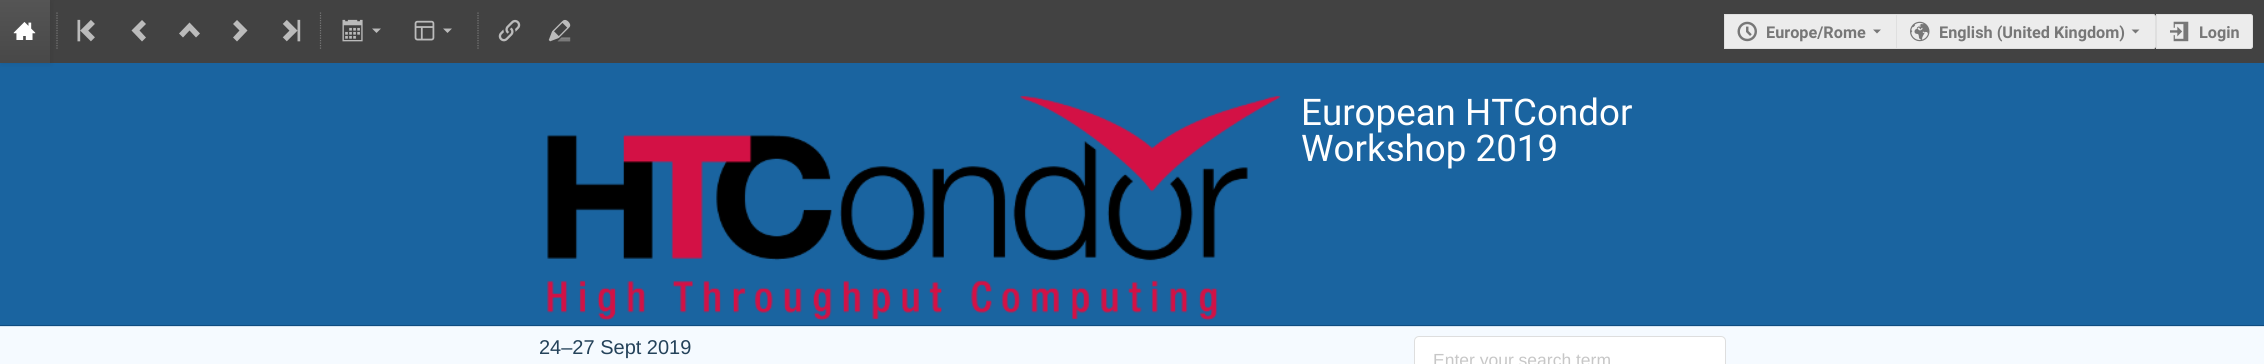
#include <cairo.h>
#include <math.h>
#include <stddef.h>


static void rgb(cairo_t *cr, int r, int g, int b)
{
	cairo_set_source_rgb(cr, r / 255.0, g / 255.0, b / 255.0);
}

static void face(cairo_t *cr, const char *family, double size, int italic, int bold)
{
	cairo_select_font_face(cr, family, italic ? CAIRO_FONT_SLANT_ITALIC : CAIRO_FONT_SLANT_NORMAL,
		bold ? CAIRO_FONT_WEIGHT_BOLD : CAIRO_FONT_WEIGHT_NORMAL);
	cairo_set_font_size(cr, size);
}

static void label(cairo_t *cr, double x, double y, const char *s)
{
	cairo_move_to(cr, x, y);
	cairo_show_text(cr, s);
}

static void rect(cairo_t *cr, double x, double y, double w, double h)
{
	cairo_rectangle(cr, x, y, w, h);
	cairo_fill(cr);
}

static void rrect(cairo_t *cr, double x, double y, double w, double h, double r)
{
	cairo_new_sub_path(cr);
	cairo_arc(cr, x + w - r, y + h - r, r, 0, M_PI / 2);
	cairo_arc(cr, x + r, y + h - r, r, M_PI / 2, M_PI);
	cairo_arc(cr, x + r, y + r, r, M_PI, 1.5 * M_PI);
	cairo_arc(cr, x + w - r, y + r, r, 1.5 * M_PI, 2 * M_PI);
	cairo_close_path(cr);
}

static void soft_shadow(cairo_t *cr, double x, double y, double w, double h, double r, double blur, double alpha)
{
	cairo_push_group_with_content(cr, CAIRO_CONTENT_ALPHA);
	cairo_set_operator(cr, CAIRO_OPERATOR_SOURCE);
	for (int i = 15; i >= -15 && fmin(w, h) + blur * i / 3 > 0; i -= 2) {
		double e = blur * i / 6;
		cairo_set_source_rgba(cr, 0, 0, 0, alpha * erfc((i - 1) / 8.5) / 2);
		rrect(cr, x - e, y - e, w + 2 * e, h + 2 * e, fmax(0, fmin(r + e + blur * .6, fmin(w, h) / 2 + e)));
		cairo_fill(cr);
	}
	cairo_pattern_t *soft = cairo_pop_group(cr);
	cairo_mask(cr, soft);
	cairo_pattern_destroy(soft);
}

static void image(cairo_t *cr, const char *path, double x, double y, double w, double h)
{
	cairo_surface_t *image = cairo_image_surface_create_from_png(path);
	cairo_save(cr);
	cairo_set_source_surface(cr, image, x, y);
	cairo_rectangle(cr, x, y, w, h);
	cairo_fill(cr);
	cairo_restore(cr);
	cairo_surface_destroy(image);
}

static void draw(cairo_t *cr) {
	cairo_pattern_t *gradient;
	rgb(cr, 26, 100, 160);
	cairo_paint(cr);
	rgb(cr, 66, 66, 66);
	rect(cr, 50, 0, 2214, 63);
	rgb(cr, 20, 20, 20);
	soft_shadow(cr, 1, 1, 50, 63, 0, 2.5, 0.1);
	gradient = cairo_pattern_create_linear(25, 0, 25, 63);
	cairo_pattern_add_color_stop_rgba(gradient, 0, 0.333, 0.333, 0.333, 1);
	cairo_pattern_add_color_stop_rgba(gradient, 1, 0.282, 0.282, 0.282, 1);
	cairo_set_source(cr, gradient);
	cairo_pattern_destroy(gradient);
	rect(cr, 0, 0, 50, 63);
	image(cr, "image0.png", 13, 22, 23, 18);
	cairo_new_path(cr);
	cairo_move_to(cr, 57, 12.5);
	cairo_line_to(cr, 57, 50);
	rgb(cr, 119, 119, 119);
	cairo_set_line_width(cr, 1.2);
	cairo_set_dash(cr, (double[]){1.25, 1.25}, 2, 0);
	cairo_stroke(cr);
	image(cr, "image1.png", 77, 19, 18, 23);
	rgb(cr, 187, 187, 187);
	cairo_new_path(cr);
	cairo_move_to(cr, 142, 41.5);
	cairo_line_to(cr, 146, 37.5);
	cairo_line_to(cr, 139.5, 30.5);
	cairo_line_to(cr, 146, 24);
	cairo_line_to(cr, 142, 20);
	cairo_line_to(cr, 131.5, 30.5);
	cairo_close_path(cr);
	cairo_fill(cr);
	cairo_new_path(cr);
	cairo_move_to(cr, 179, 33.5);
	cairo_line_to(cr, 183, 37.5);
	cairo_line_to(cr, 189.5, 30.5);
	cairo_line_to(cr, 196, 37.5);
	cairo_line_to(cr, 200, 33.5);
	cairo_line_to(cr, 189.5, 22.5);
	cairo_close_path(cr);
	cairo_fill(cr);
	cairo_new_path(cr);
	cairo_move_to(cr, 237, 20);
	cairo_line_to(cr, 233, 24);
	cairo_line_to(cr, 239.5, 30.5);
	cairo_line_to(cr, 233, 37.5);
	cairo_line_to(cr, 237, 41.5);
	cairo_line_to(cr, 247.5, 30.5);
	cairo_close_path(cr);
	cairo_fill(cr);
	image(cr, "image2.png", 282, 19, 19, 23);
	cairo_new_path(cr);
	cairo_move_to(cr, 320.5, 12.5);
	cairo_line_to(cr, 320.5, 50);
	rgb(cr, 119, 119, 119);
	cairo_stroke(cr);
	image(cr, "image3.png", 342, 19, 21, 23);
	rgb(cr, 187, 187, 187);
	cairo_new_path(cr);
	cairo_move_to(cr, 372, 28.5);
	cairo_line_to(cr, 376.5, 33);
	cairo_line_to(cr, 381, 28.5);
	cairo_close_path(cr);
	cairo_fill(cr);
	image(cr, "image4.png", 414, 20, 21, 21);
	cairo_new_path(cr);
	cairo_move_to(cr, 443, 28.5);
	cairo_line_to(cr, 447.5, 33);
	cairo_line_to(cr, 452, 28.5);
	cairo_close_path(cr);
	cairo_fill(cr);
	cairo_new_path(cr);
	cairo_move_to(cr, 478, 12.5);
	cairo_line_to(cr, 478, 50);
	rgb(cr, 119, 119, 119);
	cairo_stroke(cr);
	image(cr, "image5.png", 498, 19, 23, 23);
	image(cr, "image6.png", 548, 19, 23, 23);
	rgb(cr, 236, 236, 236);
	rect(cr, 1725, 15, 171, 33);
	rgb(cr, 223, 223, 223);
	rect(cr, 1724, 14, 172, 1);
	rect(cr, 1724, 48, 172, 1);
	rect(cr, 1724, 14, 1, 35);
	image(cr, "image7.png", 1737, 21, 20, 21);
	face(cr, "Roboto", 16.25, 0, 1);
	rgb(cr, 119, 119, 119);
	label(cr, 1766, 38, "Europe/Rome");
	cairo_new_path(cr);
	cairo_move_to(cr, 1873, 29.5);
	cairo_line_to(cr, 1877, 33.5);
	cairo_line_to(cr, 1881, 29.5);
	cairo_close_path(cr);
	cairo_fill(cr);
	rgb(cr, 236, 236, 236);
	cairo_new_path(cr);
	cairo_move_to(cr, 1896.5, 14.5);
	cairo_line_to(cr, 2153.5, 14.5);
	cairo_curve_to(cr, 2154.5, 14.5, 2155.5, 15.5, 2155.5, 16.5);
	cairo_line_to(cr, 2155.5, 46.5);
	cairo_curve_to(cr, 2155.5, 47.5, 2154.5, 48.5, 2153.5, 48.5);
	cairo_line_to(cr, 1896.5, 48.5);
	cairo_close_path(cr);
	cairo_fill_preserve(cr);
	rgb(cr, 223, 223, 223);
	cairo_set_line_width(cr, 1);
	cairo_set_dash(cr, NULL, 0, 0);
	cairo_stroke(cr);
	image(cr, "image8.png", 1910, 21, 20, 21);
	rgb(cr, 119, 119, 119);
	label(cr, 1939, 38, "English (United Kingdom)");
	cairo_new_path(cr);
	cairo_move_to(cr, 2131.5, 29.5);
	cairo_line_to(cr, 2135.5, 33.5);
	cairo_line_to(cr, 2139.5, 29.5);
	cairo_close_path(cr);
	cairo_fill(cr);
	rgb(cr, 236, 236, 236);
	cairo_new_path(cr);
	cairo_move_to(cr, 2156.5, 14.5);
	cairo_line_to(cr, 2250.5, 14.5);
	cairo_curve_to(cr, 2251.5, 14.5, 2252.5, 15.5, 2252.5, 16.5);
	cairo_line_to(cr, 2252.5, 46.5);
	cairo_curve_to(cr, 2252.5, 47.5, 2251.5, 48.5, 2250.5, 48.5);
	cairo_line_to(cr, 2156.5, 48.5);
	cairo_close_path(cr);
	cairo_fill_preserve(cr);
	rgb(cr, 223, 223, 223);
	cairo_stroke(cr);
	image(cr, "image9.png", 2170, 21, 19, 21);
	rgb(cr, 119, 119, 119);
	label(cr, 2199, 38, "Login");
	rgb(cr, 15, 76, 128);
	rect(cr, 0, 325, 2264, 1);
	image(cr, "image10.png", 547, 96, 734, 225);
	face(cr, "Roboto", 36.75, 0, 0);
	rgb(cr, 255, 255, 255);
	label(cr, 1301, 125, "European HTCondor");
	label(cr, 1301, 161, "Workshop 2019");
	rgb(cr, 245, 250, 255);
	rect(cr, 0, 327, 2264, 37);
	rgb(cr, 213, 228, 241);
	rect(cr, 0, 326, 2264, 1);
	face(cr, "Liberation Sans", 20, 0, 0);
	rgb(cr, 36, 66, 90);
	label(cr, 539, 354, "24–27 Sept 2019");
	rgb(cr, 255, 255, 255);
	rrect(cr, 1414, 336, 312, 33, 5);
	cairo_fill(cr);
	rrect(cr, 1414.5, 336.5, 311, 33, 4.5);
	cairo_set_source_rgba(cr, 0.133, 0.141, 0.149, 0.15);
	cairo_stroke(cr);
	face(cr, "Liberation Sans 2", 17.5, 0, 0);
	rgb(cr, 199, 199, 199);
	label(cr, 1433, 366, "Enter your search term");
}

int main(void) {
	cairo_surface_t *surface = cairo_image_surface_create(CAIRO_FORMAT_RGB24, 2264, 364);
	cairo_t *cr = cairo_create(surface);
	cairo_font_options_t *options = cairo_font_options_create();
	cairo_font_options_set_hint_metrics(options, CAIRO_HINT_METRICS_OFF);
	cairo_font_options_set_hint_style(options, CAIRO_HINT_STYLE_NONE);
	cairo_set_font_options(cr, options);
	cairo_set_miter_limit(cr, 4);
	draw(cr);
	cairo_surface_write_to_png(surface, "render.png");
	cairo_font_options_destroy(options);
	cairo_destroy(cr);
	cairo_surface_destroy(surface);
	return 0;
}
